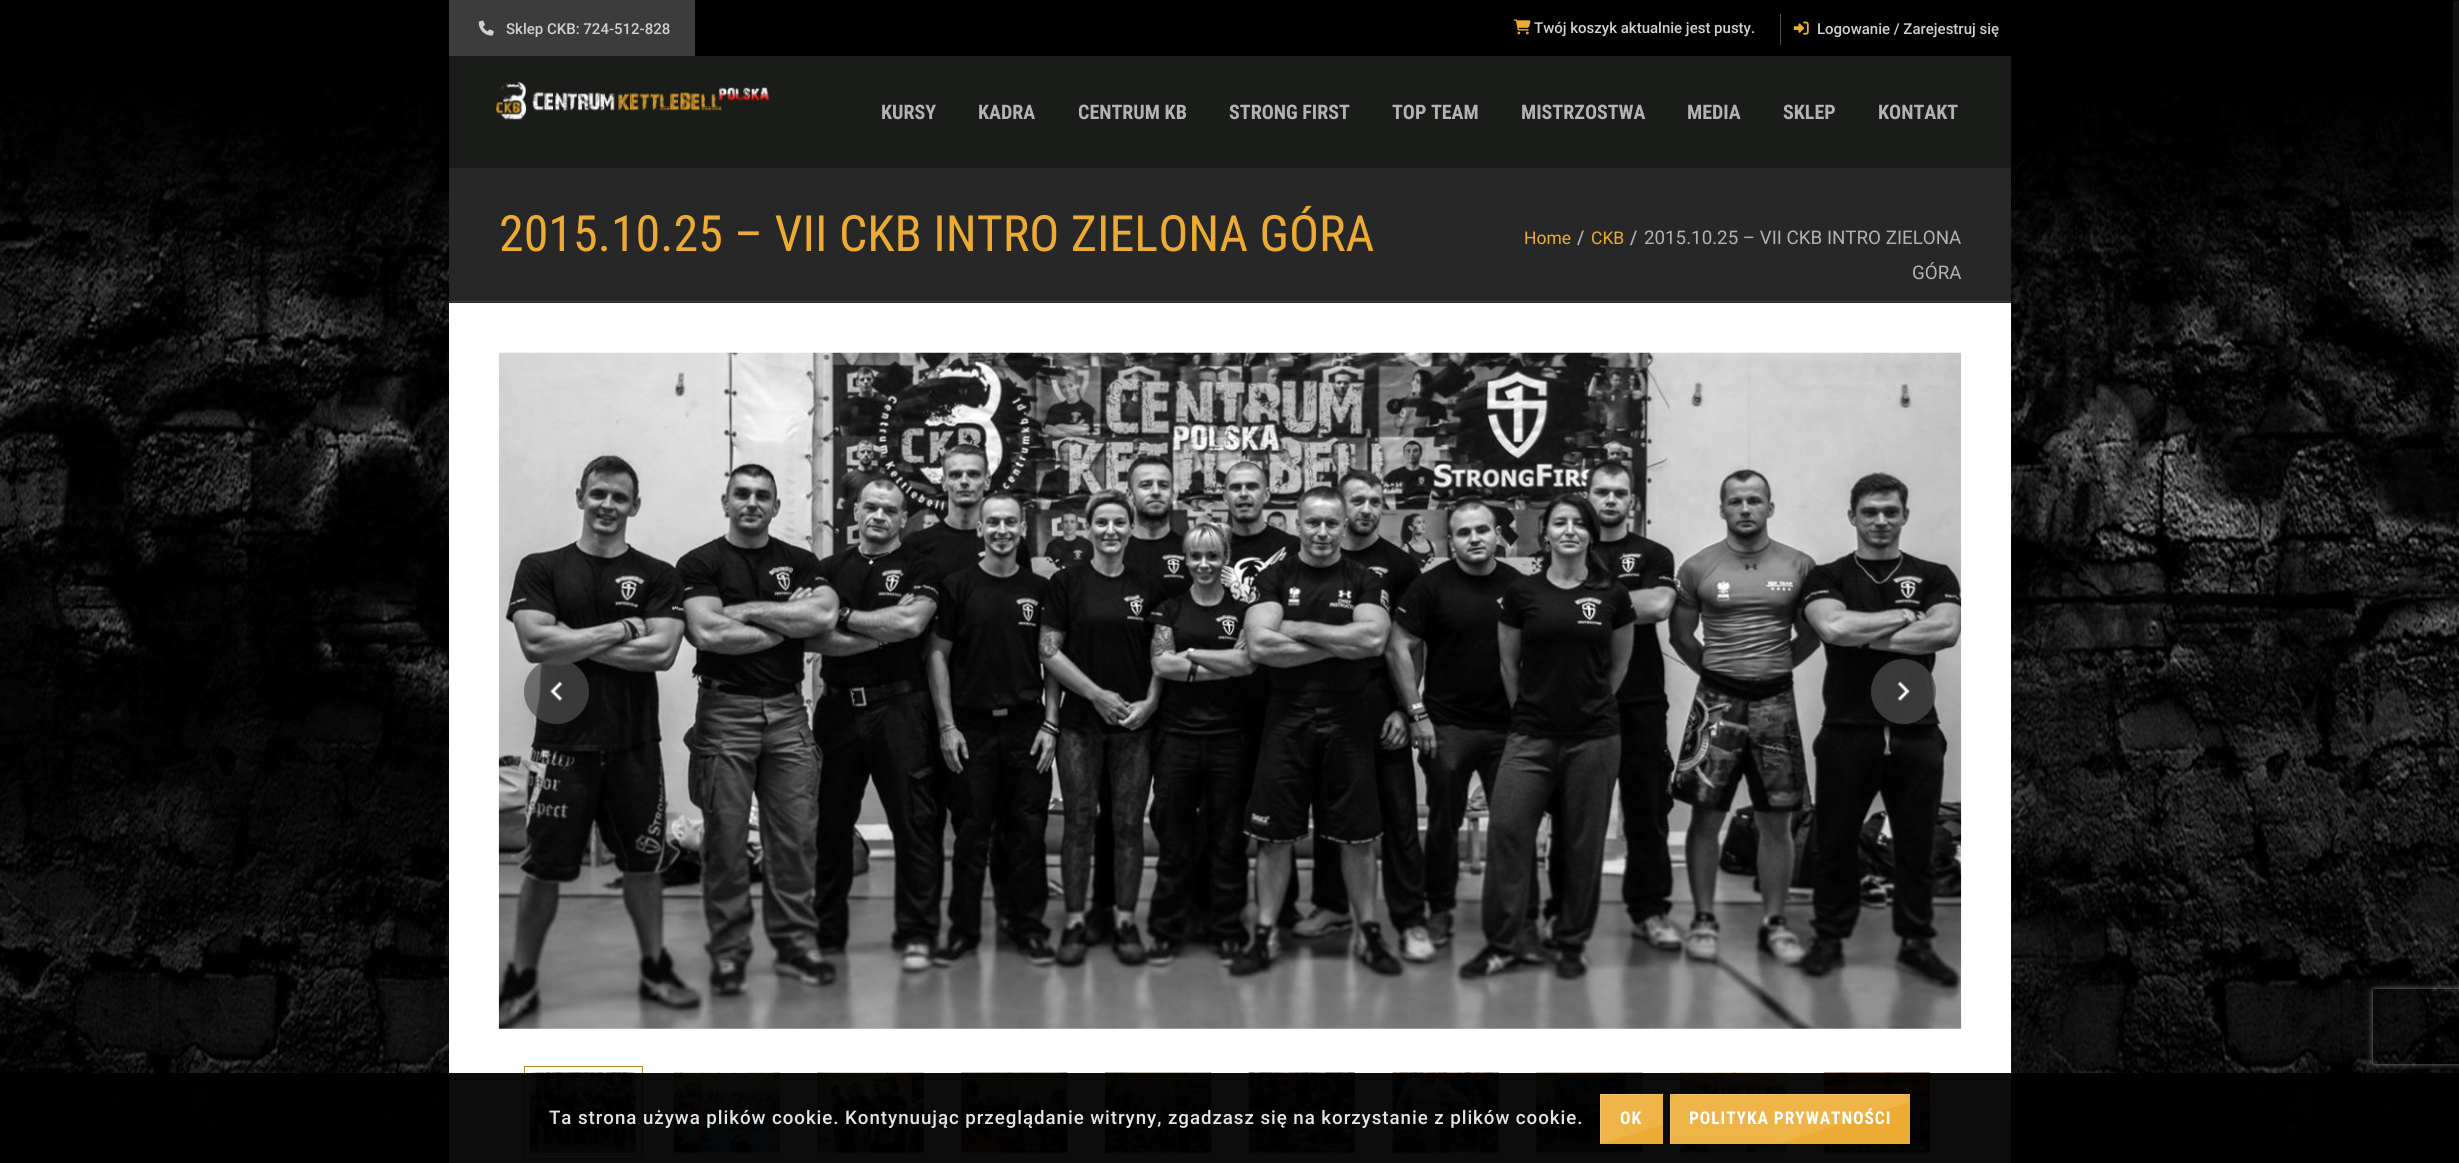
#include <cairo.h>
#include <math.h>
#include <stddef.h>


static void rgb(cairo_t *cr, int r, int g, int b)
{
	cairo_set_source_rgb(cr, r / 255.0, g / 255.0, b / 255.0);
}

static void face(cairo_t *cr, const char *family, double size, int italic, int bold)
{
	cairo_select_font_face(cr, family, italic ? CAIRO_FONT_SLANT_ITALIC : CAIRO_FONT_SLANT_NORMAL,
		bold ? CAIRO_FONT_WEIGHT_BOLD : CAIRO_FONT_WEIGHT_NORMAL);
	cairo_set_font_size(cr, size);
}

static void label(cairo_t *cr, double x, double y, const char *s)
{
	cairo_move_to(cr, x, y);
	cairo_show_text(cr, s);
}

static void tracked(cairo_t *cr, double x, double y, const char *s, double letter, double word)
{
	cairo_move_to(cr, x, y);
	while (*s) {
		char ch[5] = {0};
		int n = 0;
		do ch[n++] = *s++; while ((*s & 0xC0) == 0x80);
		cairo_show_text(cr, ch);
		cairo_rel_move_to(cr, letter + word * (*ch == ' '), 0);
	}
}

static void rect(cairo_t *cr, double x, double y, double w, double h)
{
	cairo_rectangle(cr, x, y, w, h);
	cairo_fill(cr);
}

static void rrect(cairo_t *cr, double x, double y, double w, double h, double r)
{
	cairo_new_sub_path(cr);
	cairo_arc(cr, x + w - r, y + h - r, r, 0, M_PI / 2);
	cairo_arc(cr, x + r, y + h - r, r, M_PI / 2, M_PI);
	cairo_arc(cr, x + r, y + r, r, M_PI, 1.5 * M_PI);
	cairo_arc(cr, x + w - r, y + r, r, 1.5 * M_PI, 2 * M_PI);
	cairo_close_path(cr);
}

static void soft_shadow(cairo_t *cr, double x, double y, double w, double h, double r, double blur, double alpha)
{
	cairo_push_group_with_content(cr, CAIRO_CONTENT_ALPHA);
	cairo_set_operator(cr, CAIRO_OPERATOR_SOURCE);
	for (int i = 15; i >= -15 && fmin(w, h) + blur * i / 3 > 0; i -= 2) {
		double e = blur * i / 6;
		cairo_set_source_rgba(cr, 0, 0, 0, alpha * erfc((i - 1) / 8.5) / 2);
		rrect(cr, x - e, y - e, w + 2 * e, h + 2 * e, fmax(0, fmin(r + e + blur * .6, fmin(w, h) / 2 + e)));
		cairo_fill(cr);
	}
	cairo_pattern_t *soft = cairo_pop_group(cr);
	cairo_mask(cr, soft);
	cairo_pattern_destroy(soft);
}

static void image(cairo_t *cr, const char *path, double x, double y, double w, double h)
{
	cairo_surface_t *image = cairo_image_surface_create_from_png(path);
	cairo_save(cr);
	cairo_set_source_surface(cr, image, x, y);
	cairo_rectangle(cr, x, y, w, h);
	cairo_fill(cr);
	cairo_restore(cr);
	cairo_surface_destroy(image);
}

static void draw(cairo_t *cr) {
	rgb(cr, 255, 255, 255);
	cairo_paint(cr);
	image(cr, "image0.png", 0, 0, 2459, 1163);
	rgb(cr, 255, 255, 255);
	rect(cr, 449, 303, 1562, 860);
	rgb(cr, 60, 60, 60);
	rect(cr, 449, 0, 246, 56);
	image(cr, "image1.png", 478, 20, 16, 16);
	face(cr, "Roboto Medium", 15, 0, 0);
	rgb(cr, 210, 209, 208);
	label(cr, 506, 34, "Sklep CKB: 724-512-828");
	image(cr, "image2.png", 1513, 19, 18, 16);
	label(cr, 1534, 33, "Twój koszyk aktualnie jest pusty.");
	rgb(cr, 77, 77, 77);
	rect(cr, 1780, 14, 1, 31);
	image(cr, "image3.png", 1793, 21, 16, 14);
	rgb(cr, 210, 209, 208);
	label(cr, 1817, 34, "Logowanie / Zarejestruj się");
	rgb(cr, 26, 28, 25);
	rect(cr, 449, 56, 1562, 112);
	image(cr, "image4.png", 496, 82, 274, 38);
	face(cr, "Roboto Condensed", 20, 0, 1);
	rgb(cr, 178, 178, 178);
	label(cr, 881, 119, "KURSY");
	label(cr, 978, 119, "KADRA");
	label(cr, 1078, 119, "CENTRUM KB");
	label(cr, 1229, 119, "STRONG FIRST");
	label(cr, 1392, 119, "TOP TEAM");
	label(cr, 1521, 119, "MISTRZOSTWA");
	label(cr, 1687, 119, "MEDIA");
	label(cr, 1783, 119, "SKLEP");
	label(cr, 1878, 119, "KONTAKT");
	rgb(cr, 39, 39, 39);
	rect(cr, 449, 168, 1562, 135);
	rgb(cr, 63, 63, 63);
	rect(cr, 449, 301, 1562, 1);
	face(cr, "Roboto Condensed", 50, 0, 0);
	rgb(cr, 236, 171, 50);
	label(cr, 499, 251, "2015.10.25 – VII CKB INTRO ZIELONA GÓRA");
	face(cr, "Roboto", 17.5, 0, 0);
	label(cr, 1524, 244, "Home");
	face(cr, "Roboto Medium", 18.75, 0, 0);
	rgb(cr, 178, 178, 178);
	label(cr, 1577, 244, "/");
	face(cr, "Roboto", 17.5, 0, 0);
	rgb(cr, 236, 171, 50);
	label(cr, 1591, 244, "CKB");
	face(cr, "Roboto Medium", 18.75, 0, 0);
	rgb(cr, 178, 178, 178);
	label(cr, 1630, 244, "/");
	face(cr, "Roboto", 18.75, 0, 0);
	label(cr, 1644, 244, "2015.10.25 – VII CKB INTRO ZIELONA");
	label(cr, 1912, 279, "GÓRA");
	image(cr, "image5.png", 498, 352, 1464, 677);
	cairo_set_source_rgba(cr, 0.302, 0.302, 0.302, 0.7);
	cairo_arc(cr, 556.5, 691.5, 32.5, 0, 2 * M_PI);
	cairo_fill(cr);
	image(cr, "image6.png", 550, 681, 13, 21);
	cairo_arc(cr, 1903.5, 691.5, 32.5, 0, 2 * M_PI);
	cairo_fill(cr);
	image(cr, "image7.png", 1897, 681, 13, 21);
	image(cr, "image8.png", 530, 1072, 107, 81);
	cairo_rectangle(cr, 524.5, 1066.5, 118, 92);
	rgb(cr, 185, 135, 42);
	cairo_set_line_width(cr, 1);
	cairo_stroke(cr);
	image(cr, "image9.png", 673, 1072, 107, 81);
	image(cr, "image10.png", 817, 1072, 107, 81);
	image(cr, "image11.png", 961, 1072, 107, 81);
	image(cr, "image12.png", 1105, 1072, 107, 81);
	image(cr, "image13.png", 1248, 1072, 107, 81);
	image(cr, "image14.png", 1392, 1072, 107, 81);
	image(cr, "image15.png", 1536, 1072, 107, 81);
	image(cr, "image16.png", 1680, 1072, 107, 81);
	image(cr, "image17.png", 1823, 1072, 107, 81);
	cairo_set_source_rgba(cr, 0.259, 0.259, 0.259, 0.27);
	rrect(cr, 2454, 1, 5, 319, 2.5);
	cairo_fill(cr);
	rrect(cr, 2453.5, 0.5, 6, 320, 3);
	cairo_stroke(cr);
	cairo_save(cr);
	cairo_set_fill_rule(cr, CAIRO_FILL_RULE_EVEN_ODD);
	cairo_new_path(cr);
	cairo_move_to(cr, 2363, 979);
	cairo_line_to(cr, 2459, 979);
	cairo_line_to(cr, 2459, 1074);
	cairo_line_to(cr, 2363, 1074);
	cairo_close_path(cr);
	cairo_move_to(cr, 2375.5, 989);
	cairo_line_to(cr, 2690.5, 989);
	cairo_curve_to(cr, 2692, 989, 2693, 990, 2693, 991.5);
	cairo_line_to(cr, 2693, 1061.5);
	cairo_curve_to(cr, 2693, 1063, 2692, 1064, 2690.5, 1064);
	cairo_line_to(cr, 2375.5, 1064);
	cairo_curve_to(cr, 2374, 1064, 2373, 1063, 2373, 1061.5);
	cairo_line_to(cr, 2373, 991.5);
	cairo_curve_to(cr, 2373, 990, 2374, 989, 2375.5, 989);
	cairo_close_path(cr);
	cairo_clip(cr);
	rgb(cr, 128, 128, 128);
	soft_shadow(cr, 2373, 989, 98, 75, 2.5, 3, 1);
	cairo_restore(cr);
	cairo_set_source_rgba(cr, 0, 0, 0, 0.95);
	rect(cr, 0, 1073, 2459, 90);
	face(cr, "Roboto Medium", 18.75, 0, 0);
	rgb(cr, 230, 230, 230);
	tracked(cr, 549, 1124, "Ta strona używa plików cookie. Kontynuując przeglądanie witryny, zgadzasz się na korzystanie z plików cookie.", 0.94, 0);
	rgb(cr, 236, 171, 50);
	rect(cr, 1600, 1094, 63, 50);
	image(cr, "image18.png", 1600, 1093, 63, 51);
	cairo_save(cr);
	cairo_rectangle(cr, 1600, 1094, 63, 50);
	cairo_clip(cr);
	cairo_set_source_rgba(cr, 1, 1, 1, 0.2);
	cairo_set_fill_rule(cr, CAIRO_FILL_RULE_EVEN_ODD);
	cairo_new_path(cr);
	cairo_move_to(cr, 1476, 970);
	cairo_line_to(cr, 1786, 970);
	cairo_line_to(cr, 1786, 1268);
	cairo_line_to(cr, 1476, 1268);
	cairo_close_path(cr);
	cairo_move_to(cr, 1601, 1095);
	cairo_line_to(cr, 1664, 1095);
	cairo_line_to(cr, 1664, 1145);
	cairo_line_to(cr, 1601, 1145);
	cairo_close_path(cr);
	cairo_fill(cr);
	cairo_restore(cr);
	face(cr, "Roboto Condensed", 17.5, 0, 1);
	rgb(cr, 255, 255, 255);
	tracked(cr, 1620, 1124, "OK", 0.9, 0);
	rgb(cr, 236, 171, 50);
	rect(cr, 1670, 1094, 240, 50);
	image(cr, "image19.png", 1670, 1093, 240, 51);
	cairo_save(cr);
	cairo_rectangle(cr, 1670, 1094, 240, 50);
	cairo_clip(cr);
	cairo_set_source_rgba(cr, 1, 1, 1, 0.2);
	cairo_set_fill_rule(cr, CAIRO_FILL_RULE_EVEN_ODD);
	cairo_new_path(cr);
	cairo_move_to(cr, 1546, 970);
	cairo_line_to(cr, 2034, 970);
	cairo_line_to(cr, 2034, 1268);
	cairo_line_to(cr, 1546, 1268);
	cairo_close_path(cr);
	cairo_move_to(cr, 1671, 1095);
	cairo_line_to(cr, 1911, 1095);
	cairo_line_to(cr, 1911, 1145);
	cairo_line_to(cr, 1671, 1145);
	cairo_close_path(cr);
	cairo_fill(cr);
	cairo_restore(cr);
	rgb(cr, 255, 255, 255);
	tracked(cr, 1689, 1124, "POLITYKA PRYWATNOŚCI", 0.9, 0);
}

int main(void) {
	cairo_surface_t *surface = cairo_image_surface_create(CAIRO_FORMAT_RGB24, 2459, 1163);
	cairo_t *cr = cairo_create(surface);
	cairo_font_options_t *options = cairo_font_options_create();
	cairo_font_options_set_hint_metrics(options, CAIRO_HINT_METRICS_OFF);
	cairo_font_options_set_hint_style(options, CAIRO_HINT_STYLE_NONE);
	cairo_set_font_options(cr, options);
	cairo_set_miter_limit(cr, 4);
	draw(cr);
	cairo_surface_write_to_png(surface, "render.png");
	cairo_font_options_destroy(options);
	cairo_destroy(cr);
	cairo_surface_destroy(surface);
	return 0;
}
